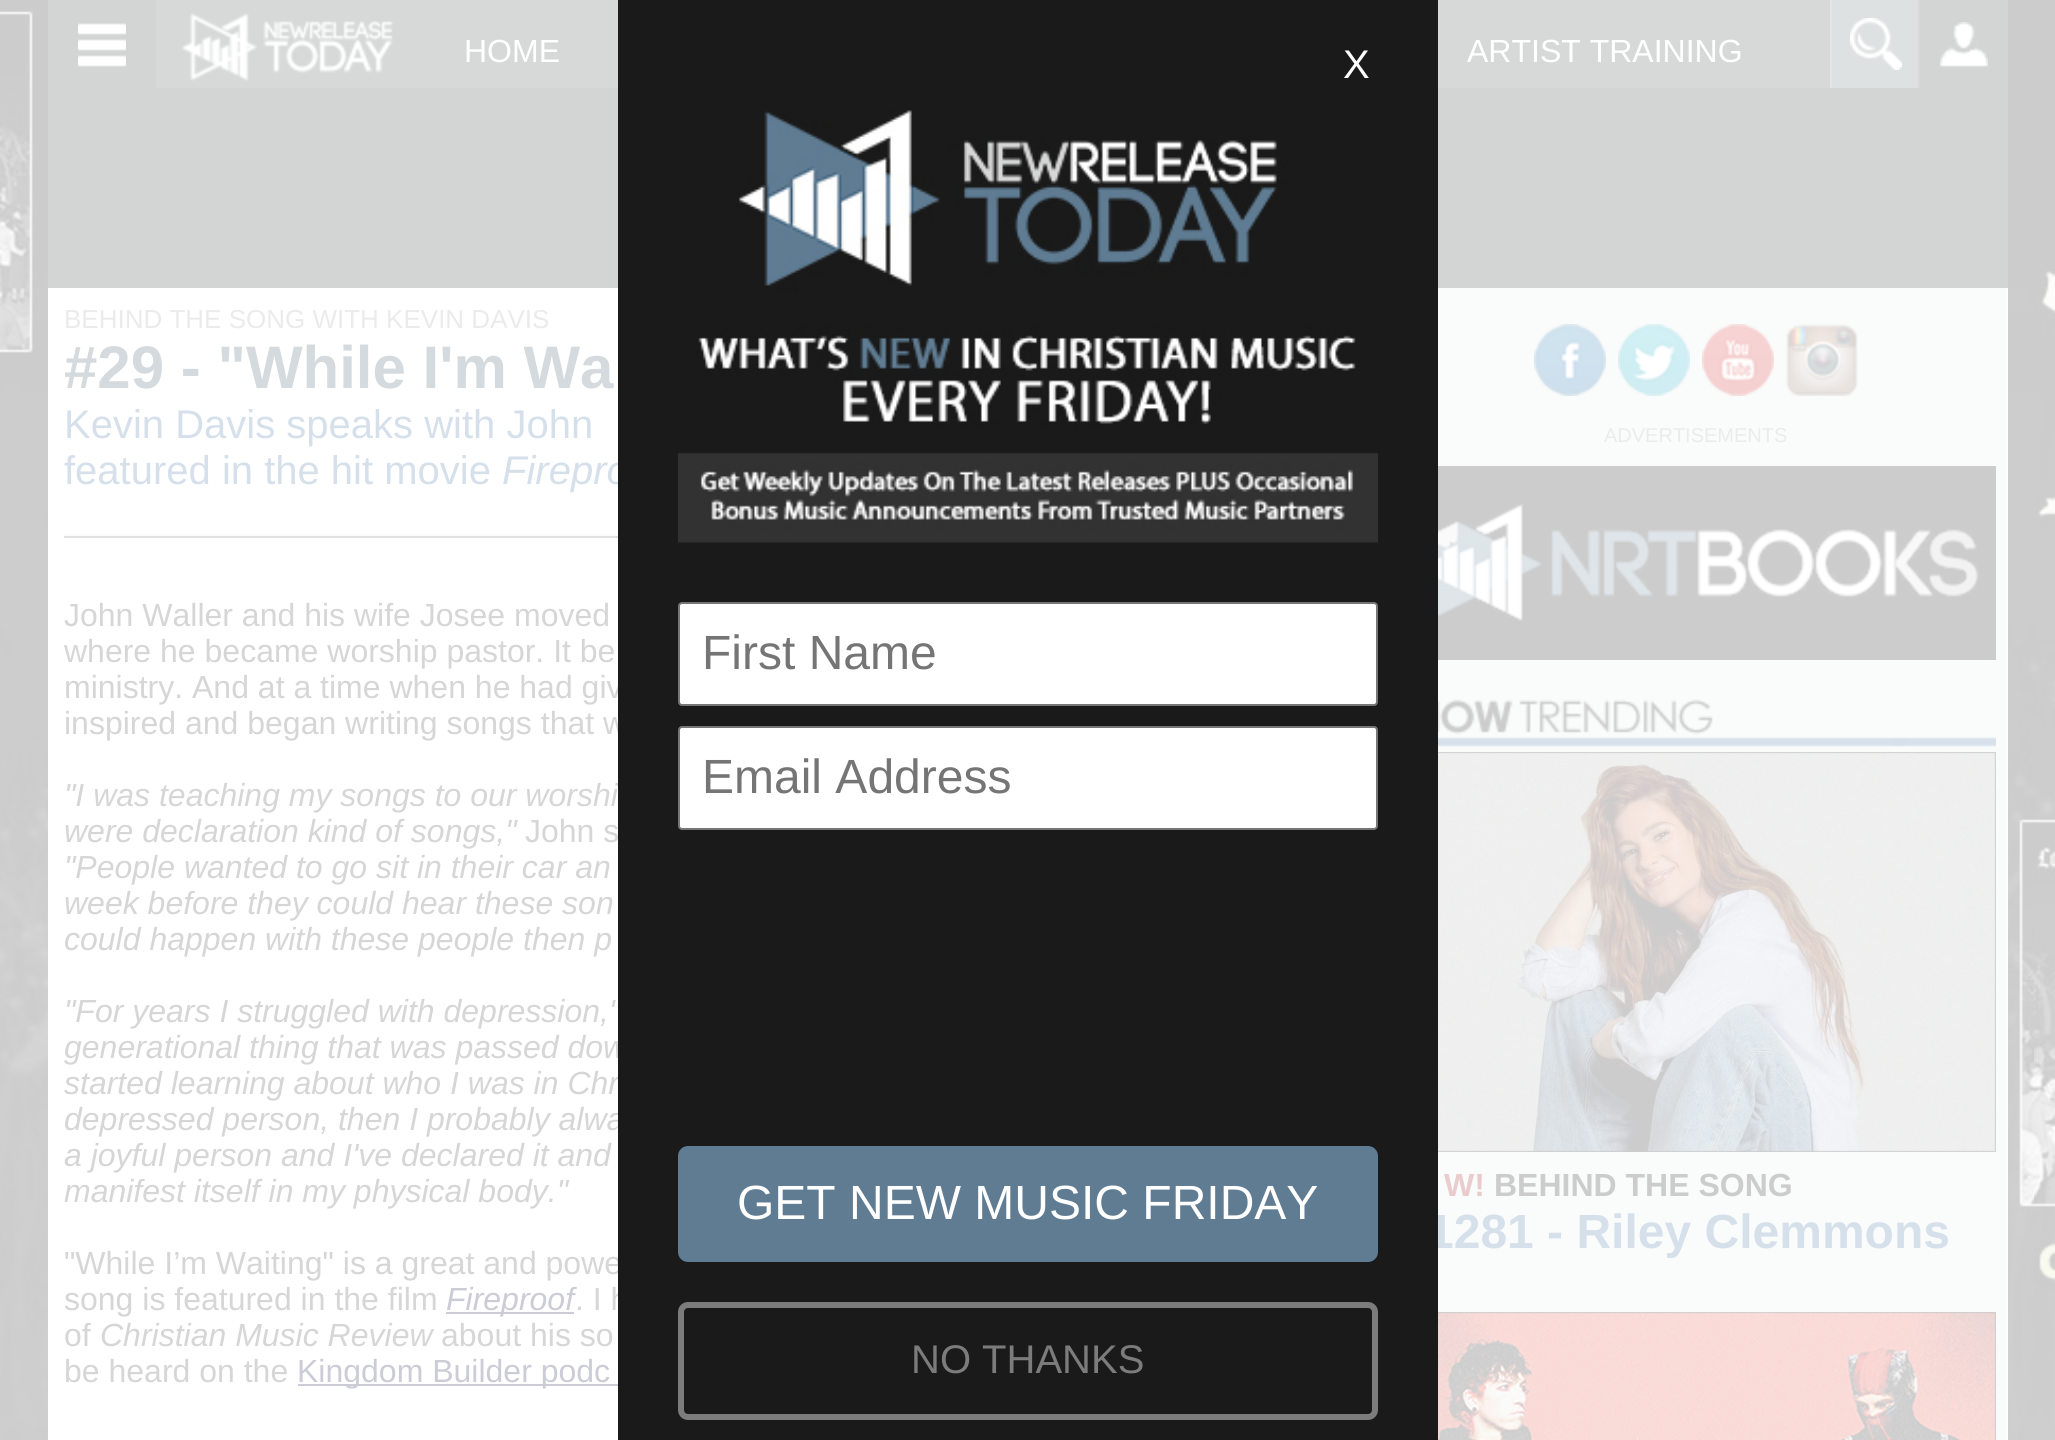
#include <cairo.h>
#include <math.h>
#include <stddef.h>


static void rgb(cairo_t *cr, int r, int g, int b)
{
	cairo_set_source_rgb(cr, r / 255.0, g / 255.0, b / 255.0);
}

static void face(cairo_t *cr, const char *family, double size, int italic, int bold)
{
	cairo_select_font_face(cr, family, italic ? CAIRO_FONT_SLANT_ITALIC : CAIRO_FONT_SLANT_NORMAL,
		bold ? CAIRO_FONT_WEIGHT_BOLD : CAIRO_FONT_WEIGHT_NORMAL);
	cairo_set_font_size(cr, size);
}

static void label(cairo_t *cr, double x, double y, const char *s)
{
	cairo_move_to(cr, x, y);
	cairo_show_text(cr, s);
}

static void rect(cairo_t *cr, double x, double y, double w, double h)
{
	cairo_rectangle(cr, x, y, w, h);
	cairo_fill(cr);
}

static void rrect(cairo_t *cr, double x, double y, double w, double h, double r)
{
	cairo_new_sub_path(cr);
	cairo_arc(cr, x + w - r, y + h - r, r, 0, M_PI / 2);
	cairo_arc(cr, x + r, y + h - r, r, M_PI / 2, M_PI);
	cairo_arc(cr, x + r, y + r, r, M_PI, 1.5 * M_PI);
	cairo_arc(cr, x + w - r, y + r, r, 1.5 * M_PI, 2 * M_PI);
	cairo_close_path(cr);
}

static void image(cairo_t *cr, const char *path, double x, double y, double w, double h)
{
	cairo_surface_t *image = cairo_image_surface_create_from_png(path);
	cairo_save(cr);
	cairo_set_source_surface(cr, image, x, y);
	cairo_rectangle(cr, x, y, w, h);
	cairo_fill(cr);
	cairo_restore(cr);
	cairo_surface_destroy(image);
}

static void draw(cairo_t *cr) {
	rgb(cr, 255, 255, 255);
	cairo_paint(cr);
	image(cr, "image0.png", 0, 0, 2055, 1440);
	rgb(cr, 215, 217, 217);
	rect(cr, 156, 0, 1764, 88);
	rgb(cr, 211, 212, 212);
	rect(cr, 48, 0, 108, 88);
	image(cr, "image1.png", 78, 23, 48, 44);
	image(cr, "image2.png", 181, 13, 212, 68);
	face(cr, "Liberation Sans", 32, 0, 0);
	rgb(cr, 255, 255, 255);
	label(cr, 464, 62, "HOME");
	label(cr, 1467, 62, "ARTIST TRAINING");
	rgb(cr, 222, 225, 225);
	rect(cr, 1832, 0, 86, 88);
	image(cr, "image3.png", 1850, 18, 52, 52);
	rgb(cr, 226, 230, 229);
	rect(cr, 1830, 0, 2, 88);
	rgb(cr, 211, 212, 212);
	rect(cr, 1920, 0, 88, 88);
	image(cr, "image4.png", 1940, 22, 48, 46);
	rgb(cr, 255, 255, 255);
	rect(cr, 48, 288, 570, 1152);
	face(cr, "Liberation Sans", 40, 1, 0);
	rgb(cr, 214, 224, 235);
	label(cr, 502, 484, "Firepro");
	face(cr, "Liberation Sans", 32, 0, 0);
	rgb(cr, 214, 214, 214);
	label(cr, 64, 698, "ministry. And at a time when he had giv");
	label(cr, 64, 734, "inspired and began writing songs that w");
	face(cr, "Liberation Sans", 32, 1, 0);
	label(cr, 64, 806, "\"I was teaching my songs to our worshi");
	face(cr, "Liberation Sans", 32, 0, 0);
	label(cr, 525, 842, "John s");
	face(cr, "Liberation Sans", 32, 1, 0);
	label(cr, 64, 1022, "\"For years I struggled with depression,\"");
	label(cr, 64, 1058, "generational thing that was passed dow");
	label(cr, 64, 1094, "started learning about who I was in Chr");
	label(cr, 64, 1130, "depressed person, then I probably alwa");
	face(cr, "Liberation Sans", 32, 0, 0);
	label(cr, 64, 1274, "\"While I’m Waiting\" is a great and powe");
	rgb(cr, 204, 204, 214);
	rect(cr, 446, 1312, 128, 2);
	face(cr, "Liberation Sans", 32, 1, 0);
	label(cr, 446, 1310, "Fireproof");
	face(cr, "Liberation Sans", 32, 0, 0);
	rgb(cr, 214, 214, 214);
	label(cr, 575, 1310, ". I h");
	image(cr, "image6.png", 1438, 288, 570, 1152);
	face(cr, "Liberation Sans", 48, 0, 1);
	rgb(cr, 214, 224, 235);
	label(cr, 1427, 1248, "1281 - Riley Clemmons");
	rgb(cr, 211, 212, 212);
	rect(cr, 48, 88, 1960, 200);
	rgb(cr, 26, 26, 26);
	rect(cr, 618, 0, 820, 1440);
	face(cr, "Liberation Sans", 40, 0, 0);
	rgb(cr, 255, 255, 255);
	label(cr, 1343, 78, "X");
	image(cr, "image5.png", 678, 110, 700, 433);
	rrect(cr, 679, 603, 698, 102, 3);
	cairo_fill_preserve(cr);
	rgb(cr, 118, 118, 118);
	cairo_stroke(cr);
	face(cr, "Liberation Sans", 48, 0, 0);
	rgb(cr, 117, 117, 117);
	label(cr, 702, 669, "First Name");
	rgb(cr, 255, 255, 255);
	rrect(cr, 679, 727, 698, 102, 3);
	cairo_fill_preserve(cr);
	rgb(cr, 118, 118, 118);
	cairo_stroke(cr);
	rgb(cr, 117, 117, 117);
	label(cr, 702, 793, "Email Address");
	rgb(cr, 96, 124, 146);
	rrect(cr, 678, 1146, 700, 116, 10);
	cairo_fill(cr);
	rgb(cr, 255, 255, 255);
	label(cr, 737, 1219, "GET NEW MUSIC FRIDAY");
	rrect(cr, 681, 1305, 694, 112, 7);
	rgb(cr, 124, 124, 124);
	cairo_set_line_width(cr, 6);
	cairo_stroke(cr);
	face(cr, "Liberation Sans", 40, 0, 0);
	label(cr, 911, 1373, "NO THANKS");
	face(cr, "Liberation Sans", 26, 0, 0);
	rgb(cr, 235, 235, 235);
	label(cr, 64, 328, "BEHIND THE SONG WITH KEVIN DAVIS");
	face(cr, "Liberation Sans", 60, 0, 1);
	rgb(cr, 213, 218, 222);
	label(cr, 64, 388, "#29 - \"While I'm Wa");
	face(cr, "Liberation Sans", 40, 0, 0);
	rgb(cr, 214, 224, 235);
	label(cr, 64, 438, "Kevin Davis speaks with John");
	label(cr, 64, 484, "featured in the hit movie");
	rgb(cr, 252, 252, 252);
	rect(cr, 64, 534, 554, 2);
	rgb(cr, 224, 224, 224);
	rect(cr, 64, 536, 554, 2);
	face(cr, "Liberation Sans", 32, 0, 0);
	rgb(cr, 214, 214, 214);
	label(cr, 64, 626, "John Waller and his wife Josee moved");
	label(cr, 64, 662, "where he became worship pastor. It be");
	face(cr, "Liberation Sans", 32, 1, 0);
	label(cr, 64, 842, "were declaration kind of songs,\"");
	label(cr, 64, 878, "\"People wanted to go sit in their car an");
	label(cr, 64, 914, "week before they could hear these son");
	label(cr, 64, 950, "could happen with these people then p");
	label(cr, 64, 1166, "a joyful person and I've declared it and");
	label(cr, 64, 1202, "manifest itself in my physical body.\"");
	face(cr, "Liberation Sans", 32, 0, 0);
	label(cr, 64, 1310, "song is featured in the film");
	label(cr, 64, 1346, "of");
	face(cr, "Liberation Sans", 32, 1, 0);
	label(cr, 100, 1346, "Christian Music Review");
	face(cr, "Liberation Sans", 32, 0, 0);
	label(cr, 441, 1346, "about his so");
	label(cr, 64, 1382, "be heard on the");
	rgb(cr, 204, 204, 214);
	rect(cr, 298, 1384, 320, 2);
	label(cr, 297, 1382, "Kingdom Builder podc");
	image(cr, "image7.png", 1534, 324, 72, 72);
	image(cr, "image8.png", 1618, 324, 72, 72);
	image(cr, "image9.png", 1702, 324, 72, 72);
	image(cr, "image10.png", 1786, 324, 72, 72);
	face(cr, "Liberation Sans", 20, 0, 0);
	rgb(cr, 235, 235, 235);
	label(cr, 1604, 442, "ADVERTISEMENTS");
	image(cr, "image11.png", 1438, 466, 558, 194);
	image(cr, "image12.png", 1438, 699, 558, 48);
	image(cr, "image13.png", 1438, 752, 558, 400);
	face(cr, "Liberation Sans", 32, 0, 1);
	rgb(cr, 235, 204, 204);
	label(cr, 1444, 1196, "W!");
	rgb(cr, 204, 204, 204);
	label(cr, 1494, 1196, "BEHIND THE SONG");
	image(cr, "image14.png", 1438, 1312, 558, 128);
}

int main(void) {
	cairo_surface_t *surface = cairo_image_surface_create(CAIRO_FORMAT_RGB24, 2055, 1440);
	cairo_t *cr = cairo_create(surface);
	cairo_font_options_t *options = cairo_font_options_create();
	cairo_font_options_set_hint_metrics(options, CAIRO_HINT_METRICS_OFF);
	cairo_font_options_set_hint_style(options, CAIRO_HINT_STYLE_NONE);
	cairo_set_font_options(cr, options);
	cairo_set_miter_limit(cr, 4);
	draw(cr);
	cairo_surface_write_to_png(surface, "render.png");
	cairo_font_options_destroy(options);
	cairo_destroy(cr);
	cairo_surface_destroy(surface);
	return 0;
}
